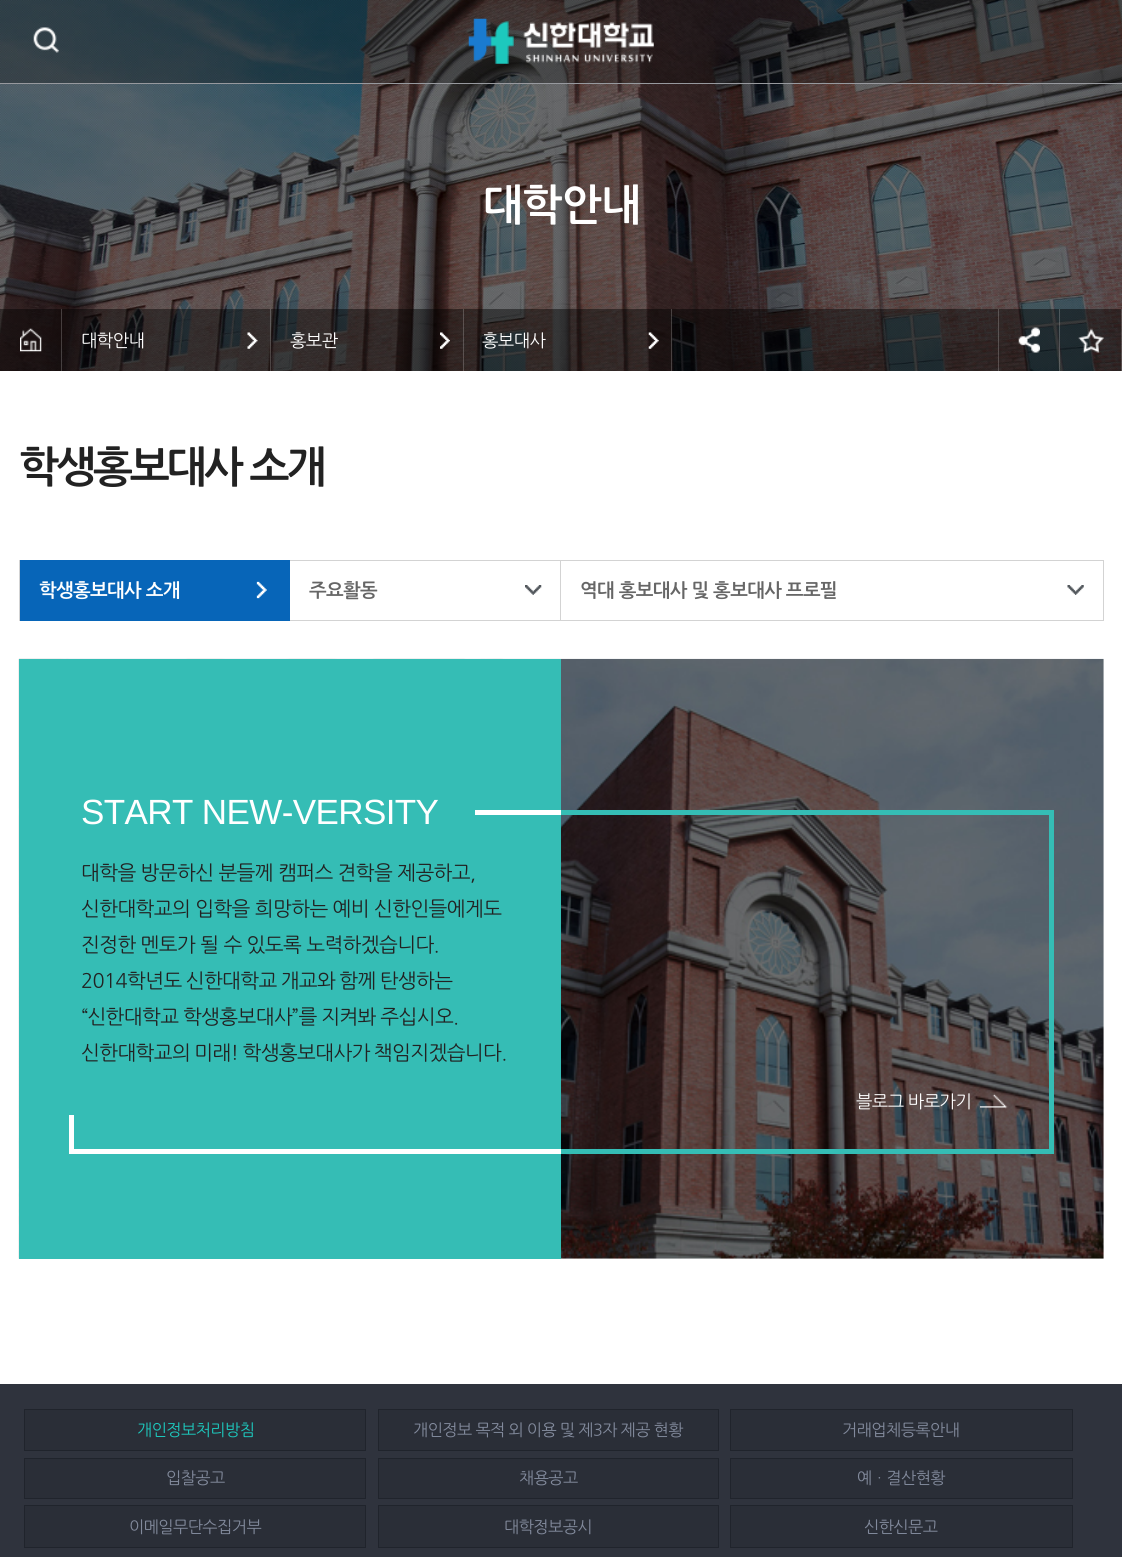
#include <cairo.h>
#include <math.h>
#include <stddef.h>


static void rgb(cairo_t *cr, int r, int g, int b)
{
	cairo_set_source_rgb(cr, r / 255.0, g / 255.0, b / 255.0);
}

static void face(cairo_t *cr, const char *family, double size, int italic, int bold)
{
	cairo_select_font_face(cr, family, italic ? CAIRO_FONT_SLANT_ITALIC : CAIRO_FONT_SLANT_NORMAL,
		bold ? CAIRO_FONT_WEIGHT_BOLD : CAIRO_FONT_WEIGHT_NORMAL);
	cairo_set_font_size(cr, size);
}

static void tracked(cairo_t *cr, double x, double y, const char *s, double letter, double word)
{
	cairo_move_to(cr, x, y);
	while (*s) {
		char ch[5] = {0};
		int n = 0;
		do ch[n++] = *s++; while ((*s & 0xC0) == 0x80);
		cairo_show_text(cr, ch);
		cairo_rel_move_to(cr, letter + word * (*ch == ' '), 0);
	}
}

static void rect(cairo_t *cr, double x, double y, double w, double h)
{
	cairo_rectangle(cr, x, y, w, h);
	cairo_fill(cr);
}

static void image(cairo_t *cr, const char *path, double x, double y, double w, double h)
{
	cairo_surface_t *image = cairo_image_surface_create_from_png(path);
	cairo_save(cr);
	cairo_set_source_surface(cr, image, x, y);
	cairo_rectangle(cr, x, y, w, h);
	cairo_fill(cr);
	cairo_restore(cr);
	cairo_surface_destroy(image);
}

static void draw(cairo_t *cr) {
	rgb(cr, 255, 255, 255);
	cairo_paint(cr);
	image(cr, "image0.png", 0, 0, 1122, 371);
	cairo_set_source_rgba(cr, 0, 0, 0, 0.3);
	rect(cr, 0, 0, 1122, 83);
	rgb(cr, 151, 153, 158);
	rect(cr, 0, 83, 1122, 1);
	image(cr, "image1.png", 33, 27, 26, 26);
	image(cr, "image2.png", 468, 18, 186, 46);
	face(cr, "NanumGothic", 42.5, 0, 1);
	rgb(cr, 255, 255, 255);
	tracked(cr, 483, 218, "대학안내", -0.6, 0);
	cairo_set_source_rgba(cr, 0, 0, 0, 0.45);
	rect(cr, 0, 309, 1122, 62);
	image(cr, "image3.png", 20, 328, 22, 24);
	cairo_set_source_rgba(cr, 1, 1, 1, 0.2);
	rect(cr, 61, 309, 1, 62);
	rect(cr, 270, 309, 1, 62);
	face(cr, "NanumGothic", 17.5, 0, 0);
	rgb(cr, 255, 255, 255);
	tracked(cr, 81, 346, "대학안내", -0.6, 0);
	image(cr, "image4.png", 247, 332, 11, 17);
	cairo_set_source_rgba(cr, 1, 1, 1, 0.2);
	rect(cr, 463, 309, 1, 62);
	rgb(cr, 255, 255, 255);
	tracked(cr, 290, 346, "홍보관", -0.6, 0);
	image(cr, "image5.png", 440, 332, 10, 17);
	cairo_set_source_rgba(cr, 1, 1, 1, 0.2);
	rect(cr, 671, 309, 1, 62);
	rgb(cr, 255, 255, 255);
	tracked(cr, 482, 346, "홍보대사", -0.6, 0);
	image(cr, "image6.png", 648, 332, 11, 17);
	image(cr, "image7.png", 1018, 327, 22, 26);
	cairo_set_source_rgba(cr, 1, 1, 1, 0.2);
	rect(cr, 1059, 309, 1, 62);
	rect(cr, 998, 309, 1, 62);
	image(cr, "image8.png", 1078, 328, 26, 25);
	rect(cr, 1121, 309, 1, 62);
	face(cr, "NanumGothic", 42.5, 0, 1);
	rgb(cr, 34, 34, 34);
	tracked(cr, 19, 480, "학생홍보대사 소개", -3, 0);
	rgb(cr, 7, 101, 184);
	rect(cr, 20, 560, 270, 61);
	rgb(cr, 211, 211, 211);
	rect(cr, 19, 560, 1, 61);
	face(cr, "NanumGothic", 18.75, 0, 1);
	rgb(cr, 255, 255, 255);
	tracked(cr, 39, 596, "학생홍보대사 소개", -0.6, 0);
	image(cr, "image9.png", 256, 581, 11, 18);
	rgb(cr, 211, 211, 211);
	rect(cr, 290, 560, 814, 1);
	rect(cr, 560, 560, 1, 61);
	rect(cr, 290, 620, 271, 1);
	rgb(cr, 102, 102, 102);
	tracked(cr, 309, 596, "주요활동", -0.6, 0);
	image(cr, "image10.png", 525, 585, 17, 10);
	rgb(cr, 211, 211, 211);
	rect(cr, 1103, 560, 1, 61);
	rect(cr, 561, 620, 543, 1);
	rgb(cr, 102, 102, 102);
	tracked(cr, 580, 596, "역대 홍보대사 및 홍보대사 프로필", -0.6, 0);
	image(cr, "image11.png", 1067, 585, 17, 10);
	image(cr, "image12.png", 18, 658, 1086, 601);
	rgb(cr, 53, 189, 181);
	rect(cr, 19, 659, 542, 600);
	face(cr, "Liberation Sans", 35, 0, 0);
	rgb(cr, 255, 255, 255);
	tracked(cr, 81, 824, "START NEW-VERSITY", -0.6, 0);
	face(cr, "NanumGothic", 20, 0, 0);
	rgb(cr, 34, 34, 34);
	tracked(cr, 81, 879, "대학을 방문하신 분들께 캠퍼스 견학을 제공하고,", -0.6, 0);
	tracked(cr, 81, 915, "신한대학교의 입학을 희망하는 예비 신한인들에게도", -0.6, 0);
	tracked(cr, 81, 951, "진정한 멘토가 될 수 있도록 노력하겠습니다.", -0.6, 0);
	tracked(cr, 81, 987, "2014학년도 신한대학교 개교와 함께 탄생하는", -0.6, -1);
	tracked(cr, 81, 1023, "“신한대학교 학생홍보대사”를 지켜봐 주십시오.", -0.6, -0.5);
	tracked(cr, 81, 1059, "신한대학교의 미래! 학생홍보대사가 책임지겠습니다.", -0.6, -1);
	cairo_rectangle(cr, 558.5, 812.5, 493, 339);
	rgb(cr, 53, 189, 181);
	cairo_set_line_width(cr, 5);
	cairo_stroke(cr);
	rgb(cr, 255, 255, 255);
	rect(cr, 475, 810, 86, 5);
	rect(cr, 69, 1149, 492, 5);
	rect(cr, 69, 1115, 5, 39);
	image(cr, "image13.png", 980, 1093, 28, 16);
	face(cr, "NanumGothic", 17.5, 0, 0);
	tracked(cr, 856, 1107, "블로그 바로가기", -0.6, 0);
	rgb(cr, 47, 51, 61);
	rect(cr, 0, 1384, 1122, 173);
	rgb(cr, 42, 46, 55);
	cairo_rectangle(cr, 24.5, 1409.5, 341, 41);
	cairo_fill_preserve(cr);
	rgb(cr, 32, 36, 44);
	cairo_set_line_width(cr, 1);
	cairo_stroke(cr);
	face(cr, "NanumGothic", 16.25, 0, 0);
	rgb(cr, 29, 200, 189);
	tracked(cr, 137, 1435, "개인정보처리방침", -0.6, 0);
	rgb(cr, 42, 46, 55);
	cairo_rectangle(cr, 378.5, 1409.5, 340, 41);
	cairo_fill_preserve(cr);
	rgb(cr, 32, 36, 44);
	cairo_stroke(cr);
	rgb(cr, 130, 138, 156);
	tracked(cr, 413, 1435, "개인정보 목적 외 이용 및 제3자 제공 현황", -0.6, -0.25);
	rgb(cr, 42, 46, 55);
	cairo_rectangle(cr, 730.5, 1409.5, 342, 41);
	cairo_fill_preserve(cr);
	rgb(cr, 32, 36, 44);
	cairo_stroke(cr);
	rgb(cr, 130, 138, 156);
	tracked(cr, 842, 1435, "거래업체등록안내", -0.6, 0);
	rgb(cr, 42, 46, 55);
	cairo_rectangle(cr, 24.5, 1458.5, 341, 40);
	cairo_fill_preserve(cr);
	rgb(cr, 32, 36, 44);
	cairo_stroke(cr);
	rgb(cr, 130, 138, 156);
	tracked(cr, 166, 1483, "입찰공고", -0.6, 0);
	rgb(cr, 42, 46, 55);
	cairo_rectangle(cr, 378.5, 1458.5, 340, 40);
	cairo_fill_preserve(cr);
	rgb(cr, 32, 36, 44);
	cairo_stroke(cr);
	rgb(cr, 130, 138, 156);
	tracked(cr, 519, 1483, "채용공고", -0.6, 0);
	rgb(cr, 42, 46, 55);
	cairo_rectangle(cr, 730.5, 1458.5, 342, 40);
	cairo_fill_preserve(cr);
	rgb(cr, 32, 36, 44);
	cairo_stroke(cr);
	rgb(cr, 130, 138, 156);
	tracked(cr, 857, 1483, "예ㆍ결산현황", -0.6, 0);
	rgb(cr, 42, 46, 55);
	cairo_rectangle(cr, 24.5, 1505.5, 341, 42);
	cairo_fill_preserve(cr);
	rgb(cr, 32, 36, 44);
	cairo_stroke(cr);
	rgb(cr, 130, 138, 156);
	tracked(cr, 129, 1532, "이메일무단수집거부", -0.6, 0);
	rgb(cr, 42, 46, 55);
	cairo_rectangle(cr, 378.5, 1505.5, 340, 42);
	cairo_fill_preserve(cr);
	rgb(cr, 32, 36, 44);
	cairo_stroke(cr);
	rgb(cr, 130, 138, 156);
	tracked(cr, 504, 1532, "대학정보공시", -0.6, 0);
	rgb(cr, 42, 46, 55);
	cairo_rectangle(cr, 730.5, 1505.5, 342, 42);
	cairo_fill_preserve(cr);
	rgb(cr, 32, 36, 44);
	cairo_stroke(cr);
	rgb(cr, 130, 138, 156);
	tracked(cr, 864, 1532, "신한신문고", -0.6, 0);
}

int main(void) {
	cairo_surface_t *surface = cairo_image_surface_create(CAIRO_FORMAT_RGB24, 1122, 1557);
	cairo_t *cr = cairo_create(surface);
	cairo_font_options_t *options = cairo_font_options_create();
	cairo_font_options_set_hint_metrics(options, CAIRO_HINT_METRICS_OFF);
	cairo_font_options_set_hint_style(options, CAIRO_HINT_STYLE_NONE);
	cairo_set_font_options(cr, options);
	cairo_set_miter_limit(cr, 4);
	draw(cr);
	cairo_surface_write_to_png(surface, "render.png");
	cairo_font_options_destroy(options);
	cairo_destroy(cr);
	cairo_surface_destroy(surface);
	return 0;
}
